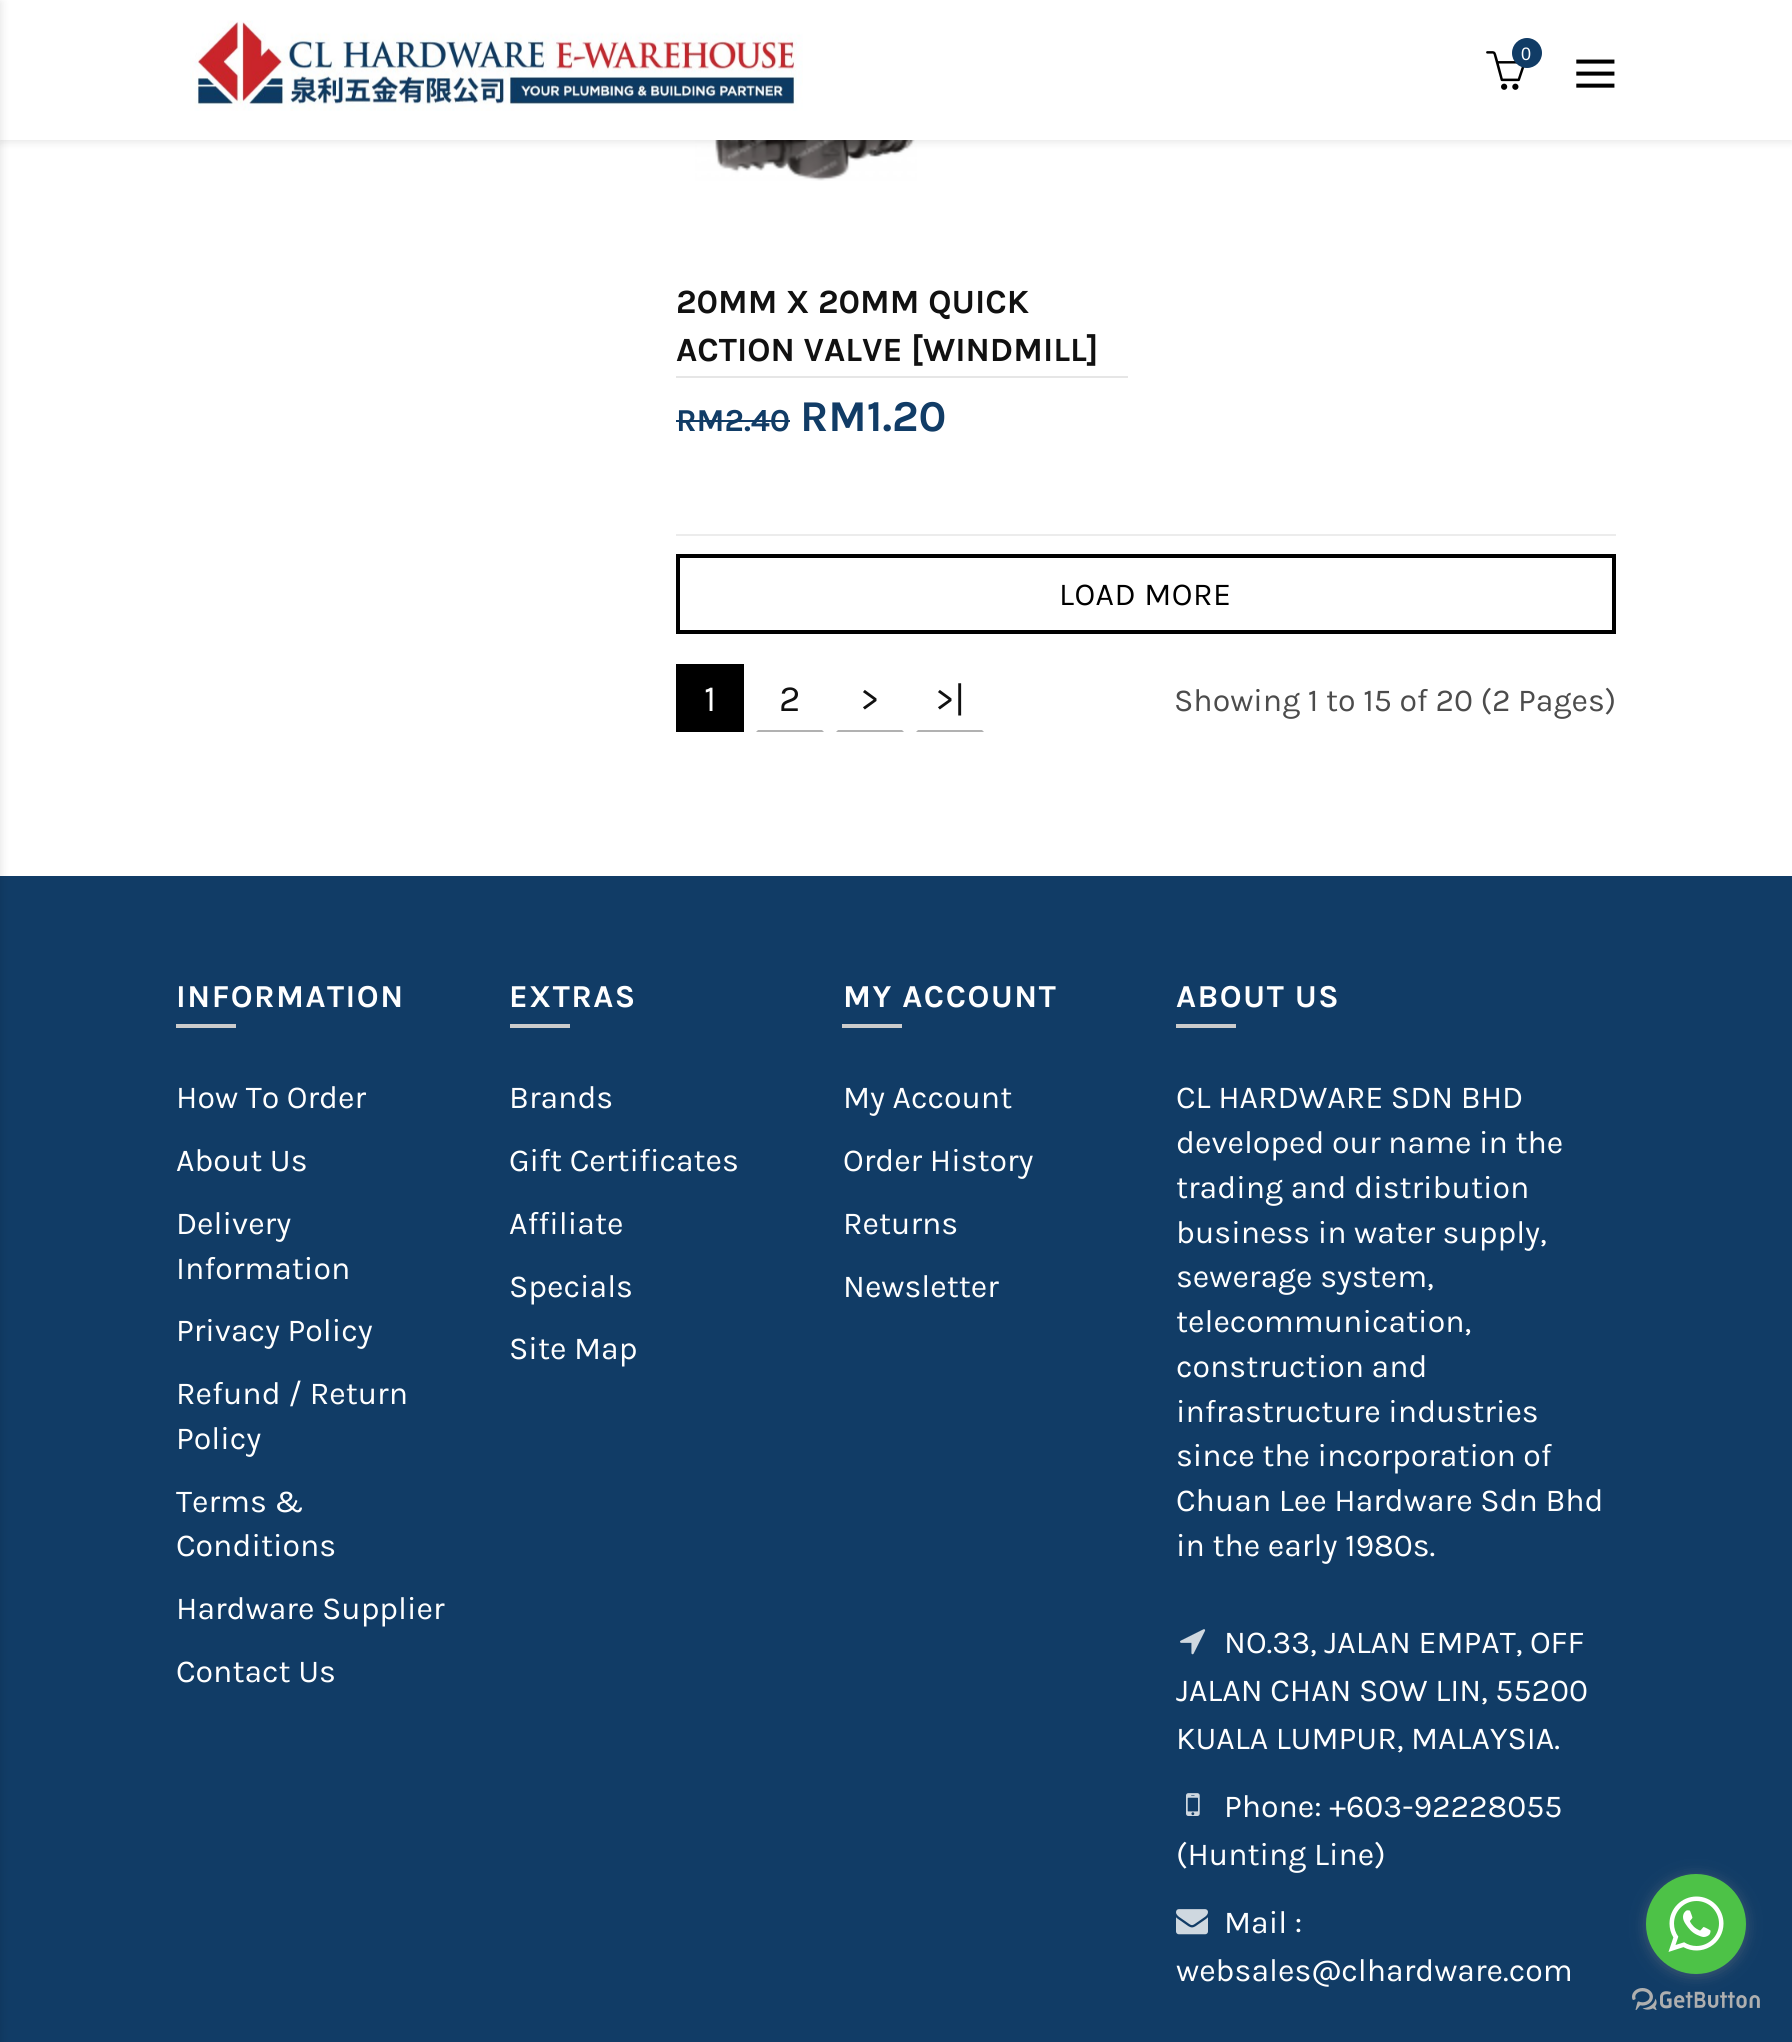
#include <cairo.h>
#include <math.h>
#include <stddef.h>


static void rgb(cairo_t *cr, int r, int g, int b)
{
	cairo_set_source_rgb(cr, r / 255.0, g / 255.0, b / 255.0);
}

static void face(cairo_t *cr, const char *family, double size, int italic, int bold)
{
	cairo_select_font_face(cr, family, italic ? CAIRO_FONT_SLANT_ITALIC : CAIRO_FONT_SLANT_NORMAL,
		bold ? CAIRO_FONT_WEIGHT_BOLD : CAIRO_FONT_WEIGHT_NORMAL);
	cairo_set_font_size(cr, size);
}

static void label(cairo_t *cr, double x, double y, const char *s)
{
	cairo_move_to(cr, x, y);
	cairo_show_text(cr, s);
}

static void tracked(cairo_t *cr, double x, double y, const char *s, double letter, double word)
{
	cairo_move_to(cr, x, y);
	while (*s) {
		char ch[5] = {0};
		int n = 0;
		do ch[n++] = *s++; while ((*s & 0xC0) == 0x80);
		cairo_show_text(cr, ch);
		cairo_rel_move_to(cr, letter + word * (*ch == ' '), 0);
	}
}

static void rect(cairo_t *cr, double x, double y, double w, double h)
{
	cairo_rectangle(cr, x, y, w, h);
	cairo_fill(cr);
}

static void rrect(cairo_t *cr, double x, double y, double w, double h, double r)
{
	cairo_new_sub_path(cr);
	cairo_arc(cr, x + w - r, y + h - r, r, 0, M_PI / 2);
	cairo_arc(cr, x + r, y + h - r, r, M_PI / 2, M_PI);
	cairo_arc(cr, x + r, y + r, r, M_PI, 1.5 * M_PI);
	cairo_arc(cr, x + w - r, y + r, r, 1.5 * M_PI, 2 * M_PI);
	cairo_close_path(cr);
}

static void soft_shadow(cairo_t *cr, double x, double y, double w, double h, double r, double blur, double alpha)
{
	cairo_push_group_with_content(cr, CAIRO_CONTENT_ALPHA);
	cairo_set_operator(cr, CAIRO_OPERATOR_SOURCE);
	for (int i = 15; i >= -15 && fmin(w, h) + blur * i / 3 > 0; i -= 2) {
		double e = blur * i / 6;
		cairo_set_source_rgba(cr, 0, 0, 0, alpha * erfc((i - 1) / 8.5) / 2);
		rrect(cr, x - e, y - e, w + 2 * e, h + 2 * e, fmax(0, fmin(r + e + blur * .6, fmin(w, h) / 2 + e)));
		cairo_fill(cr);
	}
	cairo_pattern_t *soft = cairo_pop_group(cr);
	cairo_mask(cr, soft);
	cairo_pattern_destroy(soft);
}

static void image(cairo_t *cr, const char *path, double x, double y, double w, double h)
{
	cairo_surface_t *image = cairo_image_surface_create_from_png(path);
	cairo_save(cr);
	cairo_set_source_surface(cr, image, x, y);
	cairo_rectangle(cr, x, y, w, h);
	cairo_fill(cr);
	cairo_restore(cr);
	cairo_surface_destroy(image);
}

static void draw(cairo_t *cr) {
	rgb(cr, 255, 255, 255);
	cairo_paint(cr);
	image(cr, "image3.png", 695, 140, 222, 41);
	rgb(cr, 0, 0, 0);
	soft_shadow(cr, 0, 2, 1792, 140, 0, 4, 0.1);
	rgb(cr, 255, 255, 255);
	rect(cr, 0, 0, 1792, 140);
	rgb(cr, 17, 60, 102);
	rect(cr, 0, 876, 1792, 1166);
	rgb(cr, 0, 0, 0);
	soft_shadow(cr, -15, 2, 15, 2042, 0, 5, 0.13);
	image(cr, "image0.png", 190, 20, 613, 91);
	image(cr, "image1.png", 1486, 51, 39, 39);
	rgb(cr, 17, 60, 102);
	cairo_arc(cr, 1527, 53, 15, 0, 2 * M_PI);
	cairo_fill(cr);
	face(cr, "Liberation Sans", 18, 0, 0);
	rgb(cr, 255, 255, 255);
	label(cr, 1521, 60, "0");
	image(cr, "image2.png", 1576, 59, 39, 29);
	rgb(cr, 230, 230, 230);
	rect(cr, 676, 376, 452, 2);
	face(cr, "Karla", 34, 0, 1);
	rgb(cr, 17, 17, 17);
	label(cr, 676, 313, "20MM X 20MM QUICK");
	label(cr, 676, 361, "ACTION VALVE [WINDMILL]");
	face(cr, "Karla", 32, 0, 1);
	rgb(cr, 17, 60, 102);
	label(cr, 676, 431, "RM2.40");
	rect(cr, 676, 420, 114, 2);
	face(cr, "Karla", 44, 0, 1);
	label(cr, 800, 431, "RM1.20");
	cairo_rectangle(cr, 678, 556, 936, 76);
	rgb(cr, 0, 0, 0);
	cairo_set_line_width(cr, 4);
	cairo_stroke(cr);
	face(cr, "Karla", 32, 0, 0);
	tracked(cr, 1059, 605, "LOAD MORE", 0.5, 0);
	rgb(cr, 236, 236, 236);
	rect(cr, 676, 534, 940, 2);
	rgb(cr, 0, 0, 0);
	rect(cr, 676, 664, 68, 68);
	face(cr, "Karla", 37, 0, 0);
	rgb(cr, 255, 255, 255);
	label(cr, 704, 711, "1");
	rgb(cr, 177, 177, 177);
	cairo_new_path(cr);
	cairo_move_to(cr, 824, 732);
	cairo_line_to(cr, 756, 732);
	cairo_line_to(cr, 758, 730);
	cairo_line_to(cr, 822, 730);
	cairo_close_path(cr);
	cairo_fill(cr);
	rgb(cr, 17, 17, 17);
	label(cr, 779, 711, "2");
	rgb(cr, 177, 177, 177);
	cairo_new_path(cr);
	cairo_move_to(cr, 904, 732);
	cairo_line_to(cr, 836, 732);
	cairo_line_to(cr, 838, 730);
	cairo_line_to(cr, 902, 730);
	cairo_close_path(cr);
	cairo_fill(cr);
	rgb(cr, 17, 17, 17);
	label(cr, 860, 711, ">");
	rgb(cr, 177, 177, 177);
	cairo_new_path(cr);
	cairo_move_to(cr, 984, 732);
	cairo_line_to(cr, 916, 732);
	cairo_line_to(cr, 918, 730);
	cairo_line_to(cr, 982, 730);
	cairo_close_path(cr);
	cairo_fill(cr);
	rgb(cr, 17, 17, 17);
	label(cr, 935, 711, ">|");
	face(cr, "Karla", 32, 0, 0);
	rgb(cr, 76, 76, 76);
	label(cr, 1174, 711, "Showing 1 to 15 of 20 (2 Pages)");
	face(cr, "Karla", 32, 0, 1);
	rgb(cr, 255, 255, 255);
	tracked(cr, 176, 1007, "INFORMATION", 1.5, 0);
	rgb(cr, 204, 204, 204);
	rect(cr, 176, 1024, 60, 4);
	face(cr, "Karla", 32, 0, 0);
	rgb(cr, 255, 255, 255);
	label(cr, 176, 1108, "How To Order");
	label(cr, 176, 1171, "About Us");
	label(cr, 176, 1234, "Delivery");
	label(cr, 176, 1279, "Information");
	label(cr, 176, 1341, "Privacy Policy");
	label(cr, 176, 1404, "Refund / Return");
	label(cr, 176, 1449, "Policy");
	label(cr, 176, 1512, "Terms &");
	label(cr, 176, 1556, "Conditions");
	label(cr, 176, 1619, "Hardware Supplier");
	label(cr, 176, 1682, "Contact Us");
	face(cr, "Karla", 32, 0, 1);
	tracked(cr, 509, 1007, "EXTRAS", 1.5, 0);
	rgb(cr, 204, 204, 204);
	rect(cr, 510, 1024, 60, 4);
	face(cr, "Karla", 32, 0, 0);
	rgb(cr, 255, 255, 255);
	label(cr, 509, 1108, "Brands");
	label(cr, 509, 1171, "Gift Certificates");
	label(cr, 509, 1234, "Affiliate");
	label(cr, 509, 1297, "Specials");
	label(cr, 509, 1359, "Site Map");
	face(cr, "Karla", 32, 0, 1);
	tracked(cr, 843, 1007, "MY ACCOUNT", 1.5, 0);
	rgb(cr, 204, 204, 204);
	rect(cr, 842, 1024, 60, 4);
	face(cr, "Karla", 32, 0, 0);
	rgb(cr, 255, 255, 255);
	label(cr, 843, 1108, "My Account");
	label(cr, 843, 1171, "Order History");
	label(cr, 843, 1234, "Returns");
	label(cr, 843, 1297, "Newsletter");
	face(cr, "Karla", 32, 0, 1);
	tracked(cr, 1176, 1007, "ABOUT US", 1.5, 0);
	rgb(cr, 204, 204, 204);
	rect(cr, 1176, 1024, 60, 4);
	face(cr, "Karla", 32, 0, 0);
	rgb(cr, 255, 255, 255);
	label(cr, 1176, 1108, "CL HARDWARE SDN BHD");
	label(cr, 1176, 1153, "developed our name in the");
	label(cr, 1176, 1198, "trading and distribution");
	label(cr, 1176, 1243, "business in water supply,");
	label(cr, 1176, 1287, "sewerage system,");
	label(cr, 1176, 1332, "telecommunication,");
	label(cr, 1176, 1377, "construction and");
	label(cr, 1176, 1422, "infrastructure industries");
	label(cr, 1176, 1466, "since the incorporation of");
	label(cr, 1176, 1511, "Chuan Lee Hardware Sdn Bhd");
	label(cr, 1176, 1556, "in the early 1980s.");
	image(cr, "image4.png", 1180, 1629, 26, 26);
	label(cr, 1224, 1653, "NO.33, JALAN EMPAT, OFF");
	label(cr, 1176, 1701, "JALAN CHAN SOW LIN, 55200");
	label(cr, 1176, 1749, "KUALA LUMPUR, MALAYSIA.");
	image(cr, "image5.png", 1186, 1793, 14, 23);
	label(cr, 1224, 1817, "Phone: +603-92228055");
	label(cr, 1176, 1865, "(Hunting Line)");
	image(cr, "image6.png", 1176, 1909, 32, 26);
	label(cr, 1224, 1933, "Mail :");
	label(cr, 1176, 1981, "websales@clhardware.com");
	image(cr, "image8.png", 1632, 1988, 128, 22);
	rgb(cr, 136, 136, 136);
	soft_shadow(cr, 1646, 1876, 100, 100, 50, 7, 0.4);
	rgb(cr, 77, 194, 71);
	cairo_arc(cr, 1696, 1924, 50, 0, 2 * M_PI);
	cairo_fill(cr);
	image(cr, "image7.png", 1668, 1896, 56, 56);
}

int main(void) {
	cairo_surface_t *surface = cairo_image_surface_create(CAIRO_FORMAT_RGB24, 1792, 2042);
	cairo_t *cr = cairo_create(surface);
	cairo_font_options_t *options = cairo_font_options_create();
	cairo_font_options_set_hint_metrics(options, CAIRO_HINT_METRICS_OFF);
	cairo_font_options_set_hint_style(options, CAIRO_HINT_STYLE_NONE);
	cairo_set_font_options(cr, options);
	cairo_set_miter_limit(cr, 4);
	draw(cr);
	cairo_surface_write_to_png(surface, "render.png");
	cairo_font_options_destroy(options);
	cairo_destroy(cr);
	cairo_surface_destroy(surface);
	return 0;
}
